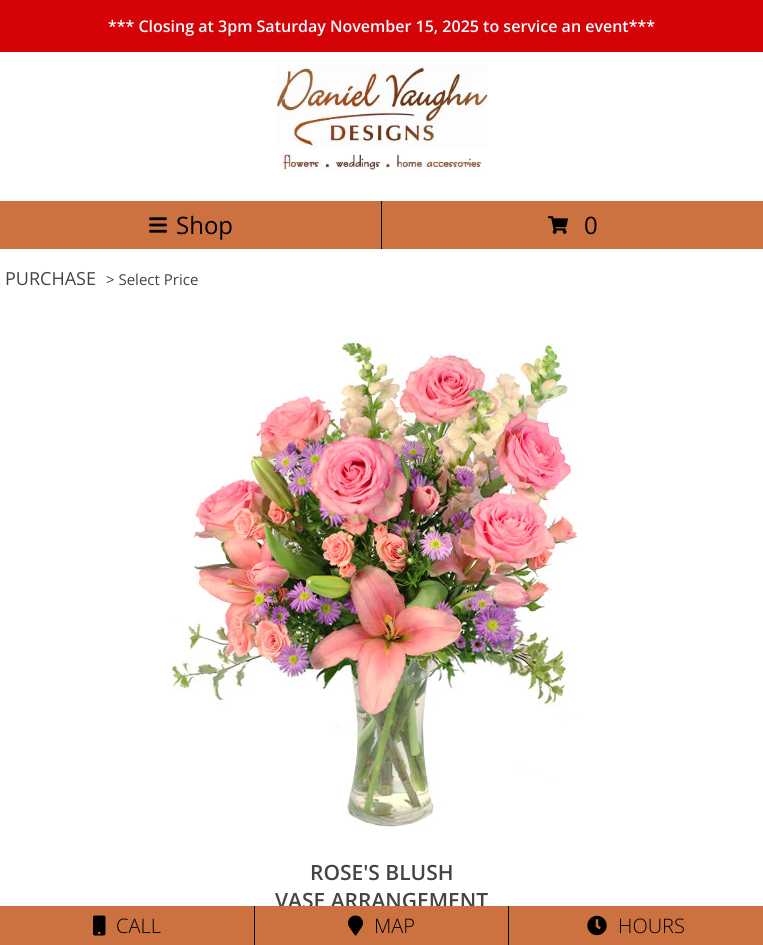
#include <cairo.h>
#include <math.h>
#include <stddef.h>


static void rgb(cairo_t *cr, int r, int g, int b)
{
	cairo_set_source_rgb(cr, r / 255.0, g / 255.0, b / 255.0);
}

static void face(cairo_t *cr, const char *family, double size, int italic, int bold)
{
	cairo_select_font_face(cr, family, italic ? CAIRO_FONT_SLANT_ITALIC : CAIRO_FONT_SLANT_NORMAL,
		bold ? CAIRO_FONT_WEIGHT_BOLD : CAIRO_FONT_WEIGHT_NORMAL);
	cairo_set_font_size(cr, size);
}

static void label(cairo_t *cr, double x, double y, const char *s)
{
	cairo_move_to(cr, x, y);
	cairo_show_text(cr, s);
}

static void rect(cairo_t *cr, double x, double y, double w, double h)
{
	cairo_rectangle(cr, x, y, w, h);
	cairo_fill(cr);
}

static void image(cairo_t *cr, const char *path, double x, double y, double w, double h)
{
	cairo_surface_t *image = cairo_image_surface_create_from_png(path);
	cairo_save(cr);
	cairo_set_source_surface(cr, image, x, y);
	cairo_rectangle(cr, x, y, w, h);
	cairo_fill(cr);
	cairo_restore(cr);
	cairo_surface_destroy(image);
}

static void draw(cairo_t *cr) {
	rgb(cr, 255, 255, 255);
	cairo_paint(cr);
	rgb(cr, 213, 2, 8);
	rect(cr, 0, 0, 763, 52);
	face(cr, "Open Sans SemiBold", 16, 0, 0);
	rgb(cr, 255, 255, 255);
	label(cr, 108, 32, "*** Closing at 3pm Saturday November 15, 2025 to service an event***");
	image(cr, "image0.png", 276, 64, 212, 108);
	rgb(cr, 0, 0, 0);
	rect(cr, 381, 201, 1, 48);
	rgb(cr, 204, 114, 64);
	rect(cr, 0, 201, 381, 48);
	image(cr, "image1.png", 149, 217, 18, 16);
	face(cr, "Open Sans", 24, 0, 0);
	rgb(cr, 0, 0, 0);
	label(cr, 176, 234, "Shop");
	rgb(cr, 204, 114, 64);
	rect(cr, 382, 201, 381, 48);
	image(cr, "image2.png", 548, 216, 20, 18);
	rgb(cr, 0, 0, 0);
	label(cr, 584, 234, "0");
	face(cr, "Open Sans", 18, 0, 0);
	rgb(cr, 68, 68, 68);
	label(cr, 5, 285, "PURCHASE");
	face(cr, "Open Sans", 15, 0, 0);
	label(cr, 106, 285, "> Select Price");
	image(cr, "image3.png", 169, 338, 408, 489);
	face(cr, "Open Sans SemiBold", 21, 0, 0);
	label(cr, 310, 880, "ROSE'S BLUSH");
	label(cr, 275, 908, "VASE ARRANGEMENT");
	rgb(cr, 204, 114, 64);
	rect(cr, 0, 906, 254, 39);
	image(cr, "image4.png", 93, 915, 13, 21);
	face(cr, "Open Sans Light", 20, 0, 0);
	rgb(cr, 0, 0, 0);
	label(cr, 116, 933, "CALL");
	rgb(cr, 204, 114, 64);
	rect(cr, 255, 906, 253, 39);
	rgb(cr, 0, 0, 0);
	rect(cr, 254, 906, 1, 39);
	image(cr, "image5.png", 348, 915, 15, 21);
	label(cr, 374, 933, "MAP");
	rgb(cr, 204, 114, 64);
	rect(cr, 509, 906, 254, 39);
	rgb(cr, 0, 0, 0);
	rect(cr, 508, 906, 1, 39);
	image(cr, "image6.png", 587, 915, 20, 21);
	label(cr, 618, 933, "HOURS");
}

int main(void) {
	cairo_surface_t *surface = cairo_image_surface_create(CAIRO_FORMAT_RGB24, 763, 945);
	cairo_t *cr = cairo_create(surface);
	cairo_font_options_t *options = cairo_font_options_create();
	cairo_font_options_set_hint_metrics(options, CAIRO_HINT_METRICS_OFF);
	cairo_font_options_set_hint_style(options, CAIRO_HINT_STYLE_NONE);
	cairo_set_font_options(cr, options);
	cairo_set_miter_limit(cr, 4);
	draw(cr);
	cairo_surface_write_to_png(surface, "render.png");
	cairo_font_options_destroy(options);
	cairo_destroy(cr);
	cairo_surface_destroy(surface);
	return 0;
}
